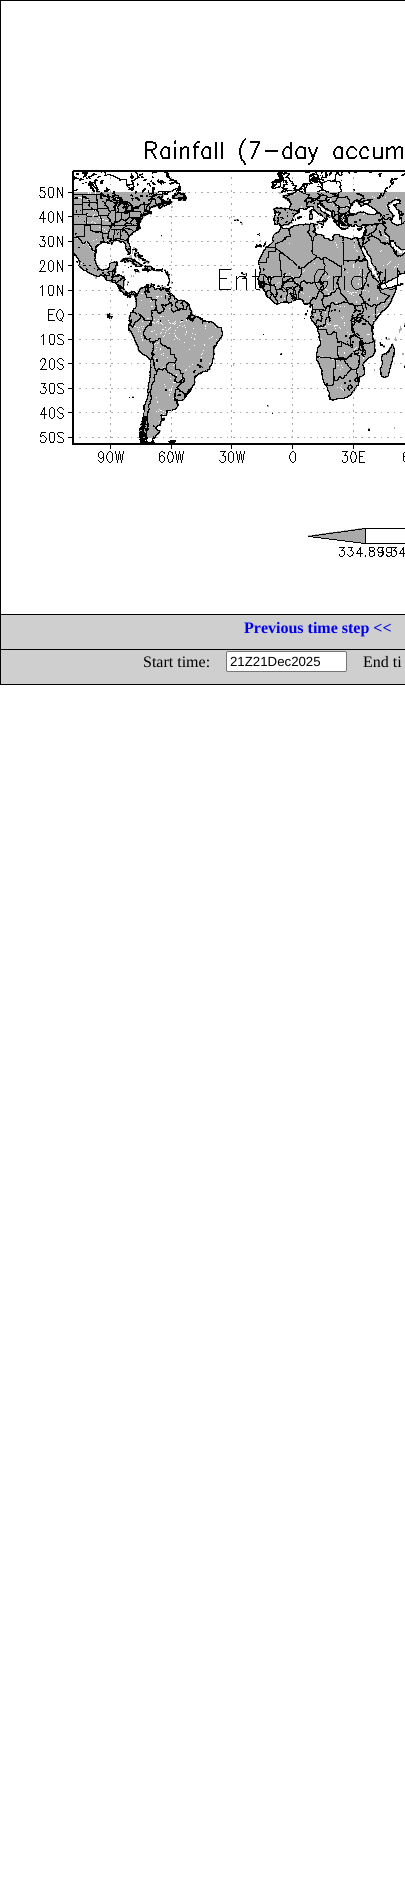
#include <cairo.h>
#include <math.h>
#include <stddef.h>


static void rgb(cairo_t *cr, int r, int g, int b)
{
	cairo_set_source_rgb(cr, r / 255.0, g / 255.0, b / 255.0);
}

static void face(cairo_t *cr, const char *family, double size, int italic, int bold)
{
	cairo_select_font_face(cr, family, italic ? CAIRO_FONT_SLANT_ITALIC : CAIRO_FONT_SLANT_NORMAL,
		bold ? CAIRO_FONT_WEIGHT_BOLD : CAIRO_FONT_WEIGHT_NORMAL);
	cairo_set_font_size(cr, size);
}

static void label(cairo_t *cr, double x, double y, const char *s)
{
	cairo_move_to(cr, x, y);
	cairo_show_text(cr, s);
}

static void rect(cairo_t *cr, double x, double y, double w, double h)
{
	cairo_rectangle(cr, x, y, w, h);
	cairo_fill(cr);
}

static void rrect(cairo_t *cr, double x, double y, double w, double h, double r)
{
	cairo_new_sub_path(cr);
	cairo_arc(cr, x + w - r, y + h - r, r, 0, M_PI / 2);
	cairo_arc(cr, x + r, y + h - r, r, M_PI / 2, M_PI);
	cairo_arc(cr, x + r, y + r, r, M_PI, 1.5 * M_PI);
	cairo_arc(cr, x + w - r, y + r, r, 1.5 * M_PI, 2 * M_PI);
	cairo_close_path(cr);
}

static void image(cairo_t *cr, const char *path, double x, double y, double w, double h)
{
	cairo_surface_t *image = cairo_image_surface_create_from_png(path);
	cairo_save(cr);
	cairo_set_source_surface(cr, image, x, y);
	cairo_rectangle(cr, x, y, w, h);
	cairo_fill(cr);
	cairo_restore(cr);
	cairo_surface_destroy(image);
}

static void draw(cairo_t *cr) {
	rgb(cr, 255, 255, 255);
	cairo_paint(cr);
	cairo_rectangle(cr, 0.5, 0.5, 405, 684);
	rgb(cr, 0, 0, 0);
	cairo_set_line_width(cr, 1);
	cairo_stroke(cr);
	image(cr, "image0.png", 39, 138, 366, 419);
	rgb(cr, 207, 207, 207);
	cairo_rectangle(cr, 0.5, 614.5, 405, 35);
	cairo_fill_preserve(cr);
	rgb(cr, 0, 0, 0);
	cairo_stroke(cr);
	face(cr, "Liberation Serif", 16, 0, 1);
	rgb(cr, 0, 0, 238);
	label(cr, 244, 633, "Previous time step <<");
	rgb(cr, 207, 207, 207);
	rect(cr, 1, 650, 404, 34);
	face(cr, "Liberation Serif", 16, 0, 0);
	rgb(cr, 0, 0, 0);
	label(cr, 143, 667, "Start time:");
	rgb(cr, 255, 255, 255);
	rrect(cr, 226.5, 651.5, 120, 20, 1.5);
	cairo_fill_preserve(cr);
	rgb(cr, 118, 118, 118);
	cairo_stroke(cr);
	face(cr, "Liberation Sans", 13.25, 0, 0);
	rgb(cr, 0, 0, 0);
	label(cr, 230, 666, "21Z21Dec2025");
	face(cr, "Liberation Serif", 16, 0, 0);
	label(cr, 363, 667, "End ti");
}

int main(void) {
	cairo_surface_t *surface = cairo_image_surface_create(CAIRO_FORMAT_RGB24, 405, 1885);
	cairo_t *cr = cairo_create(surface);
	cairo_font_options_t *options = cairo_font_options_create();
	cairo_font_options_set_hint_metrics(options, CAIRO_HINT_METRICS_OFF);
	cairo_font_options_set_hint_style(options, CAIRO_HINT_STYLE_NONE);
	cairo_set_font_options(cr, options);
	cairo_set_miter_limit(cr, 4);
	draw(cr);
	cairo_surface_write_to_png(surface, "render.png");
	cairo_font_options_destroy(options);
	cairo_destroy(cr);
	cairo_surface_destroy(surface);
	return 0;
}
